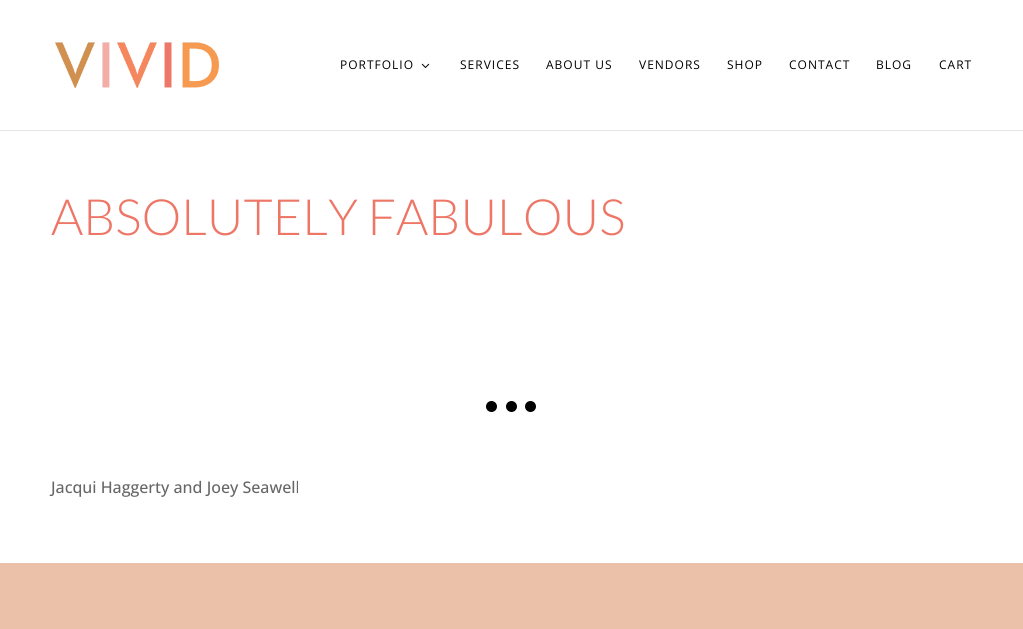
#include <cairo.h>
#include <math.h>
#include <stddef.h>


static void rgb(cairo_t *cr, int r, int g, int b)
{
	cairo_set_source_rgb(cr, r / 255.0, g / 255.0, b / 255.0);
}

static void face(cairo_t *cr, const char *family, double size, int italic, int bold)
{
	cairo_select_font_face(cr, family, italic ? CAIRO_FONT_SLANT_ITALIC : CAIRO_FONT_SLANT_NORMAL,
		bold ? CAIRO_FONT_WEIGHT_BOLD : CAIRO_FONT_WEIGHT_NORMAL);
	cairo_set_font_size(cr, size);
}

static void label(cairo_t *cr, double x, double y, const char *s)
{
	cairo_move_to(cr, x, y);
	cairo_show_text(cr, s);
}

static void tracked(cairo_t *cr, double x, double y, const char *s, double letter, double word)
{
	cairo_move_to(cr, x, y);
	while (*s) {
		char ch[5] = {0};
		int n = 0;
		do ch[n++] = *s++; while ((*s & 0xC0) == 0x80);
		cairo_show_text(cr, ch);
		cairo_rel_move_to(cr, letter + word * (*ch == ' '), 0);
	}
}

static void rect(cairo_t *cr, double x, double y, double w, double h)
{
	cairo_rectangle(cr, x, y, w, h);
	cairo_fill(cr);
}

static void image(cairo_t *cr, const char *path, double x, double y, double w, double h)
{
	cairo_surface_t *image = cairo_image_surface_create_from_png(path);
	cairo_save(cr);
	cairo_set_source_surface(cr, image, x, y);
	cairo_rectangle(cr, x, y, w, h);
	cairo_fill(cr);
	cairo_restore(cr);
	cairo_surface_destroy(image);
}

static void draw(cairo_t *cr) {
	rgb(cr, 255, 255, 255);
	cairo_paint(cr);
	rgb(cr, 230, 230, 230);
	rect(cr, 0, 130, 1023, 1);
	image(cr, "image0.png", 55, 42, 164, 46);
	face(cr, "Open Sans", 12, 0, 0);
	rgb(cr, 0, 0, 0);
	tracked(cr, 340, 69, "PORTFOLIO", 1, 0);
	image(cr, "image1.png", 421, 63, 9, 5);
	tracked(cr, 460, 69, "SERVICES", 1, 0);
	tracked(cr, 546, 69, "ABOUT US", 1, 0);
	tracked(cr, 639, 69, "VENDORS", 1, 0);
	tracked(cr, 727, 69, "SHOP", 1, 0);
	tracked(cr, 789, 69, "CONTACT", 1, 0);
	tracked(cr, 876, 69, "BLOG", 1, 0);
	tracked(cr, 939, 69, "CART", 1, 0);
	face(cr, "Lato Light", 50, 0, 0);
	rgb(cr, 237, 118, 103);
	label(cr, 51, 235, "ABSOLUTELY FABULOUS");
	rgb(cr, 0, 0, 0);
	cairo_new_path(cr);
	cairo_arc(cr, 491.5, 406.5, 5.5, 0, 2 * M_PI);
	cairo_fill(cr);
	cairo_arc(cr, 511.5, 406.5, 5.5, 0, 2 * M_PI);
	cairo_fill(cr);
	cairo_arc(cr, 530.5, 406.5, 5.5, 0, 2 * M_PI);
	cairo_fill(cr);
	face(cr, "Open Sans Medium", 16, 0, 0);
	rgb(cr, 102, 102, 102);
	label(cr, 51, 493, "Jacqui Haggerty and Joey Seawell");
	rgb(cr, 236, 193, 170);
	rect(cr, 0, 563, 1023, 66);
}

int main(void) {
	cairo_surface_t *surface = cairo_image_surface_create(CAIRO_FORMAT_RGB24, 1023, 629);
	cairo_t *cr = cairo_create(surface);
	cairo_font_options_t *options = cairo_font_options_create();
	cairo_font_options_set_hint_metrics(options, CAIRO_HINT_METRICS_OFF);
	cairo_font_options_set_hint_style(options, CAIRO_HINT_STYLE_NONE);
	cairo_set_font_options(cr, options);
	cairo_set_miter_limit(cr, 4);
	draw(cr);
	cairo_surface_write_to_png(surface, "render.png");
	cairo_font_options_destroy(options);
	cairo_destroy(cr);
	cairo_surface_destroy(surface);
	return 0;
}
